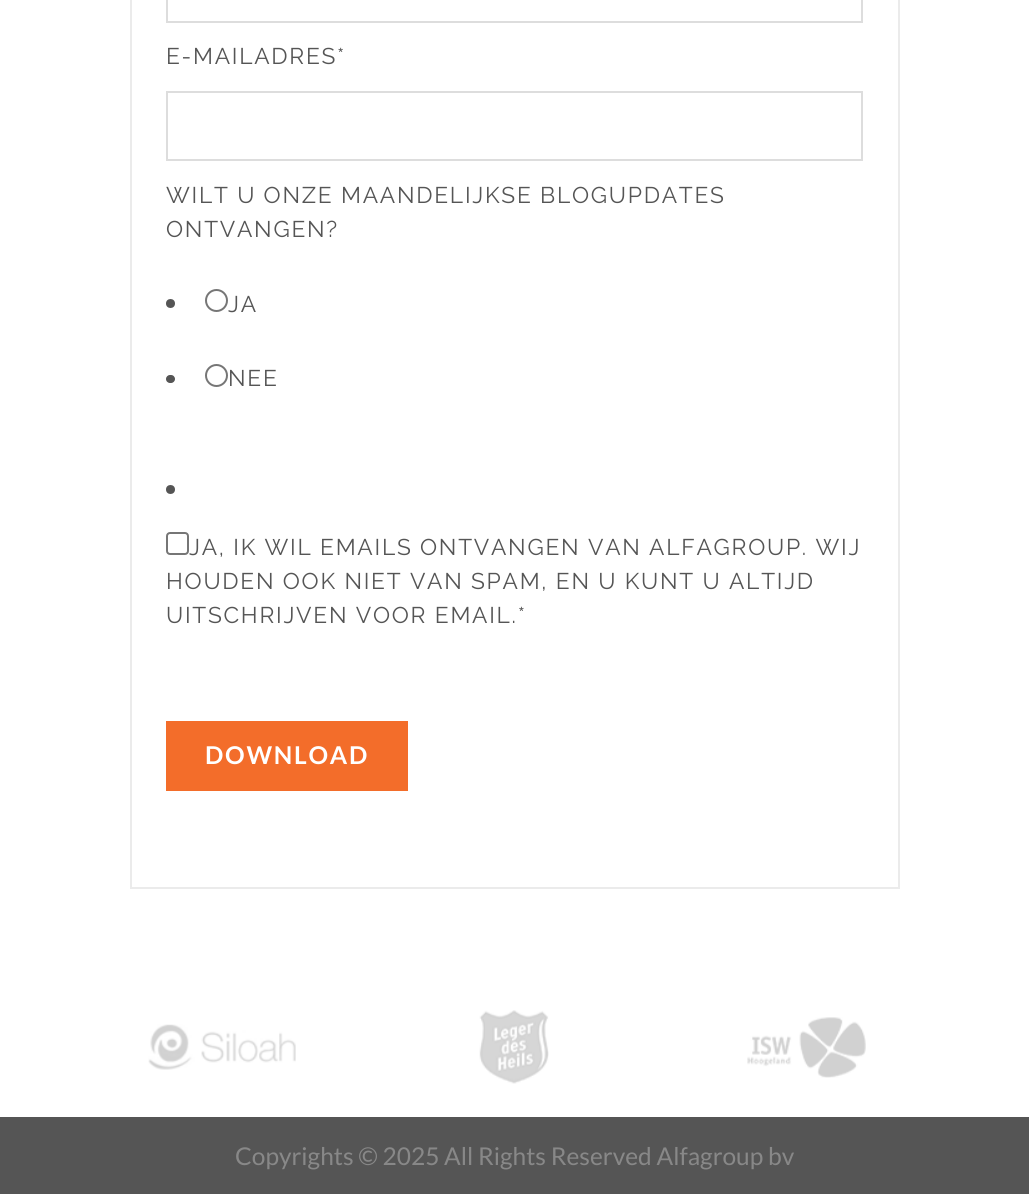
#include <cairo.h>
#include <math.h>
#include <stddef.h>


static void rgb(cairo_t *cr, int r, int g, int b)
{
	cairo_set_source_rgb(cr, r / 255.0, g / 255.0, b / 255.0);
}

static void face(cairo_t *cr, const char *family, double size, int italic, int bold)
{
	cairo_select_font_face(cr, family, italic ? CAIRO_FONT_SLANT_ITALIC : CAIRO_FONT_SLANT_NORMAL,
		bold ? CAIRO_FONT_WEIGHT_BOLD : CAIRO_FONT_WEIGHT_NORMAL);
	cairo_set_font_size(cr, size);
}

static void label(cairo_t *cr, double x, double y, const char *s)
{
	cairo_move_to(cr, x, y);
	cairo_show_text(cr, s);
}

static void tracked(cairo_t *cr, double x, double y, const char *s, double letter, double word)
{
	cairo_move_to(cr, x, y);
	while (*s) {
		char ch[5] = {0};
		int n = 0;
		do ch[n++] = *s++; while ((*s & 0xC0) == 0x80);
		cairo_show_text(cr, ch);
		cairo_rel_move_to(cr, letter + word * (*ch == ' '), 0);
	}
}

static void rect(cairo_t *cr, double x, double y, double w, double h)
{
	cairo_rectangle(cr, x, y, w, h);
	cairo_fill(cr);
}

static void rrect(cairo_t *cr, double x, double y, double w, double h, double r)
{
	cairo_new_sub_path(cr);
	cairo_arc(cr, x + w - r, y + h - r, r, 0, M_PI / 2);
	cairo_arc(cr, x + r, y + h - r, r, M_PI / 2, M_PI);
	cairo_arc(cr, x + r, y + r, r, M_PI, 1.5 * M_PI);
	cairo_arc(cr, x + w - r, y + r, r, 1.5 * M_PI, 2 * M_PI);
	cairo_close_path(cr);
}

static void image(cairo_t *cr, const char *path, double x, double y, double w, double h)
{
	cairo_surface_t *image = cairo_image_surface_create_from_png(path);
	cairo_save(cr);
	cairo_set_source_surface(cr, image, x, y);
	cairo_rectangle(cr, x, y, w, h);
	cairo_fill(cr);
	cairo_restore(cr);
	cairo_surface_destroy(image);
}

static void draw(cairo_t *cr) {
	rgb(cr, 255, 255, 255);
	cairo_paint(cr);
	cairo_rectangle(cr, 131, -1, 768, 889);
	rgb(cr, 235, 235, 235);
	cairo_stroke(cr);
	cairo_rectangle(cr, 167, -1, 695, 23);
	rgb(cr, 221, 221, 221);
	cairo_stroke(cr);
	face(cr, "Raleway", 22.75, 0, 0);
	rgb(cr, 85, 85, 85);
	tracked(cr, 166, 64, "E-MAILADRES*", 1.75, 0);
	cairo_rectangle(cr, 167, 92, 695, 68);
	rgb(cr, 221, 221, 221);
	cairo_stroke(cr);
	rgb(cr, 85, 85, 85);
	tracked(cr, 166, 203, "WILT U ONZE MAANDELIJKSE BLOGUPDATES", 1.75, 0);
	tracked(cr, 166, 237, "ONTVANGEN?", 1.75, 0);
	cairo_new_path(cr);
	cairo_arc(cr, 170.5, 303.5, 4.5, 0, 2 * M_PI);
	cairo_fill(cr);
	cairo_arc(cr, 216.5, 300.5, 10.5, 0, 2 * M_PI);
	rgb(cr, 118, 118, 118);
	cairo_stroke(cr);
	rgb(cr, 85, 85, 85);
	tracked(cr, 228, 312, "JA", 1.75, 0);
	rrect(cr, 166, 375, 9, 8, 4);
	cairo_fill(cr);
	cairo_arc(cr, 216.5, 375.5, 10.5, 0, 2 * M_PI);
	rgb(cr, 118, 118, 118);
	cairo_stroke(cr);
	rgb(cr, 85, 85, 85);
	tracked(cr, 228, 386, "NEE", 1.75, 0);
	cairo_new_path(cr);
	cairo_arc(cr, 170.5, 489.5, 4.5, 0, 2 * M_PI);
	cairo_fill(cr);
	rrect(cr, 167, 533, 21, 21, 3);
	rgb(cr, 118, 118, 118);
	cairo_stroke(cr);
	rgb(cr, 85, 85, 85);
	tracked(cr, 189, 555, "JA, IK WIL EMAILS ONTVANGEN VAN ALFAGROUP. WIJ", 1.75, 0);
	tracked(cr, 166, 589, "HOUDEN OOK NIET VAN SPAM, EN U KUNT U ALTIJD", 1.75, 0);
	tracked(cr, 166, 623, "UITSCHRIJVEN VOOR EMAIL.*", 1.75, 0);
	rgb(cr, 243, 109, 42);
	rect(cr, 166, 721, 242, 70);
	face(cr, "Lato", 24.5, 0, 1);
	rgb(cr, 255, 255, 255);
	tracked(cr, 205, 764, "DOWNLOAD", 1.75, 0);
	image(cr, "image0.png", 148, 1024, 148, 46);
	image(cr, "image1.png", 479, 1010, 70, 74);
	image(cr, "image2.png", 747, 1017, 119, 61);
	rgb(cr, 85, 85, 85);
	rect(cr, 0, 1117, 1029, 77);
	face(cr, "Lato", 24.5, 0, 0);
	rgb(cr, 136, 136, 136);
	label(cr, 235, 1165, "Copyrights © 2025 All Rights Reserved Alfagroup bv");
}

int main(void) {
	cairo_surface_t *surface = cairo_image_surface_create(CAIRO_FORMAT_RGB24, 1029, 1194);
	cairo_t *cr = cairo_create(surface);
	cairo_font_options_t *options = cairo_font_options_create();
	cairo_font_options_set_hint_metrics(options, CAIRO_HINT_METRICS_OFF);
	cairo_font_options_set_hint_style(options, CAIRO_HINT_STYLE_NONE);
	cairo_set_font_options(cr, options);
	cairo_set_miter_limit(cr, 4);
	draw(cr);
	cairo_surface_write_to_png(surface, "render.png");
	cairo_font_options_destroy(options);
	cairo_destroy(cr);
	cairo_surface_destroy(surface);
	return 0;
}
